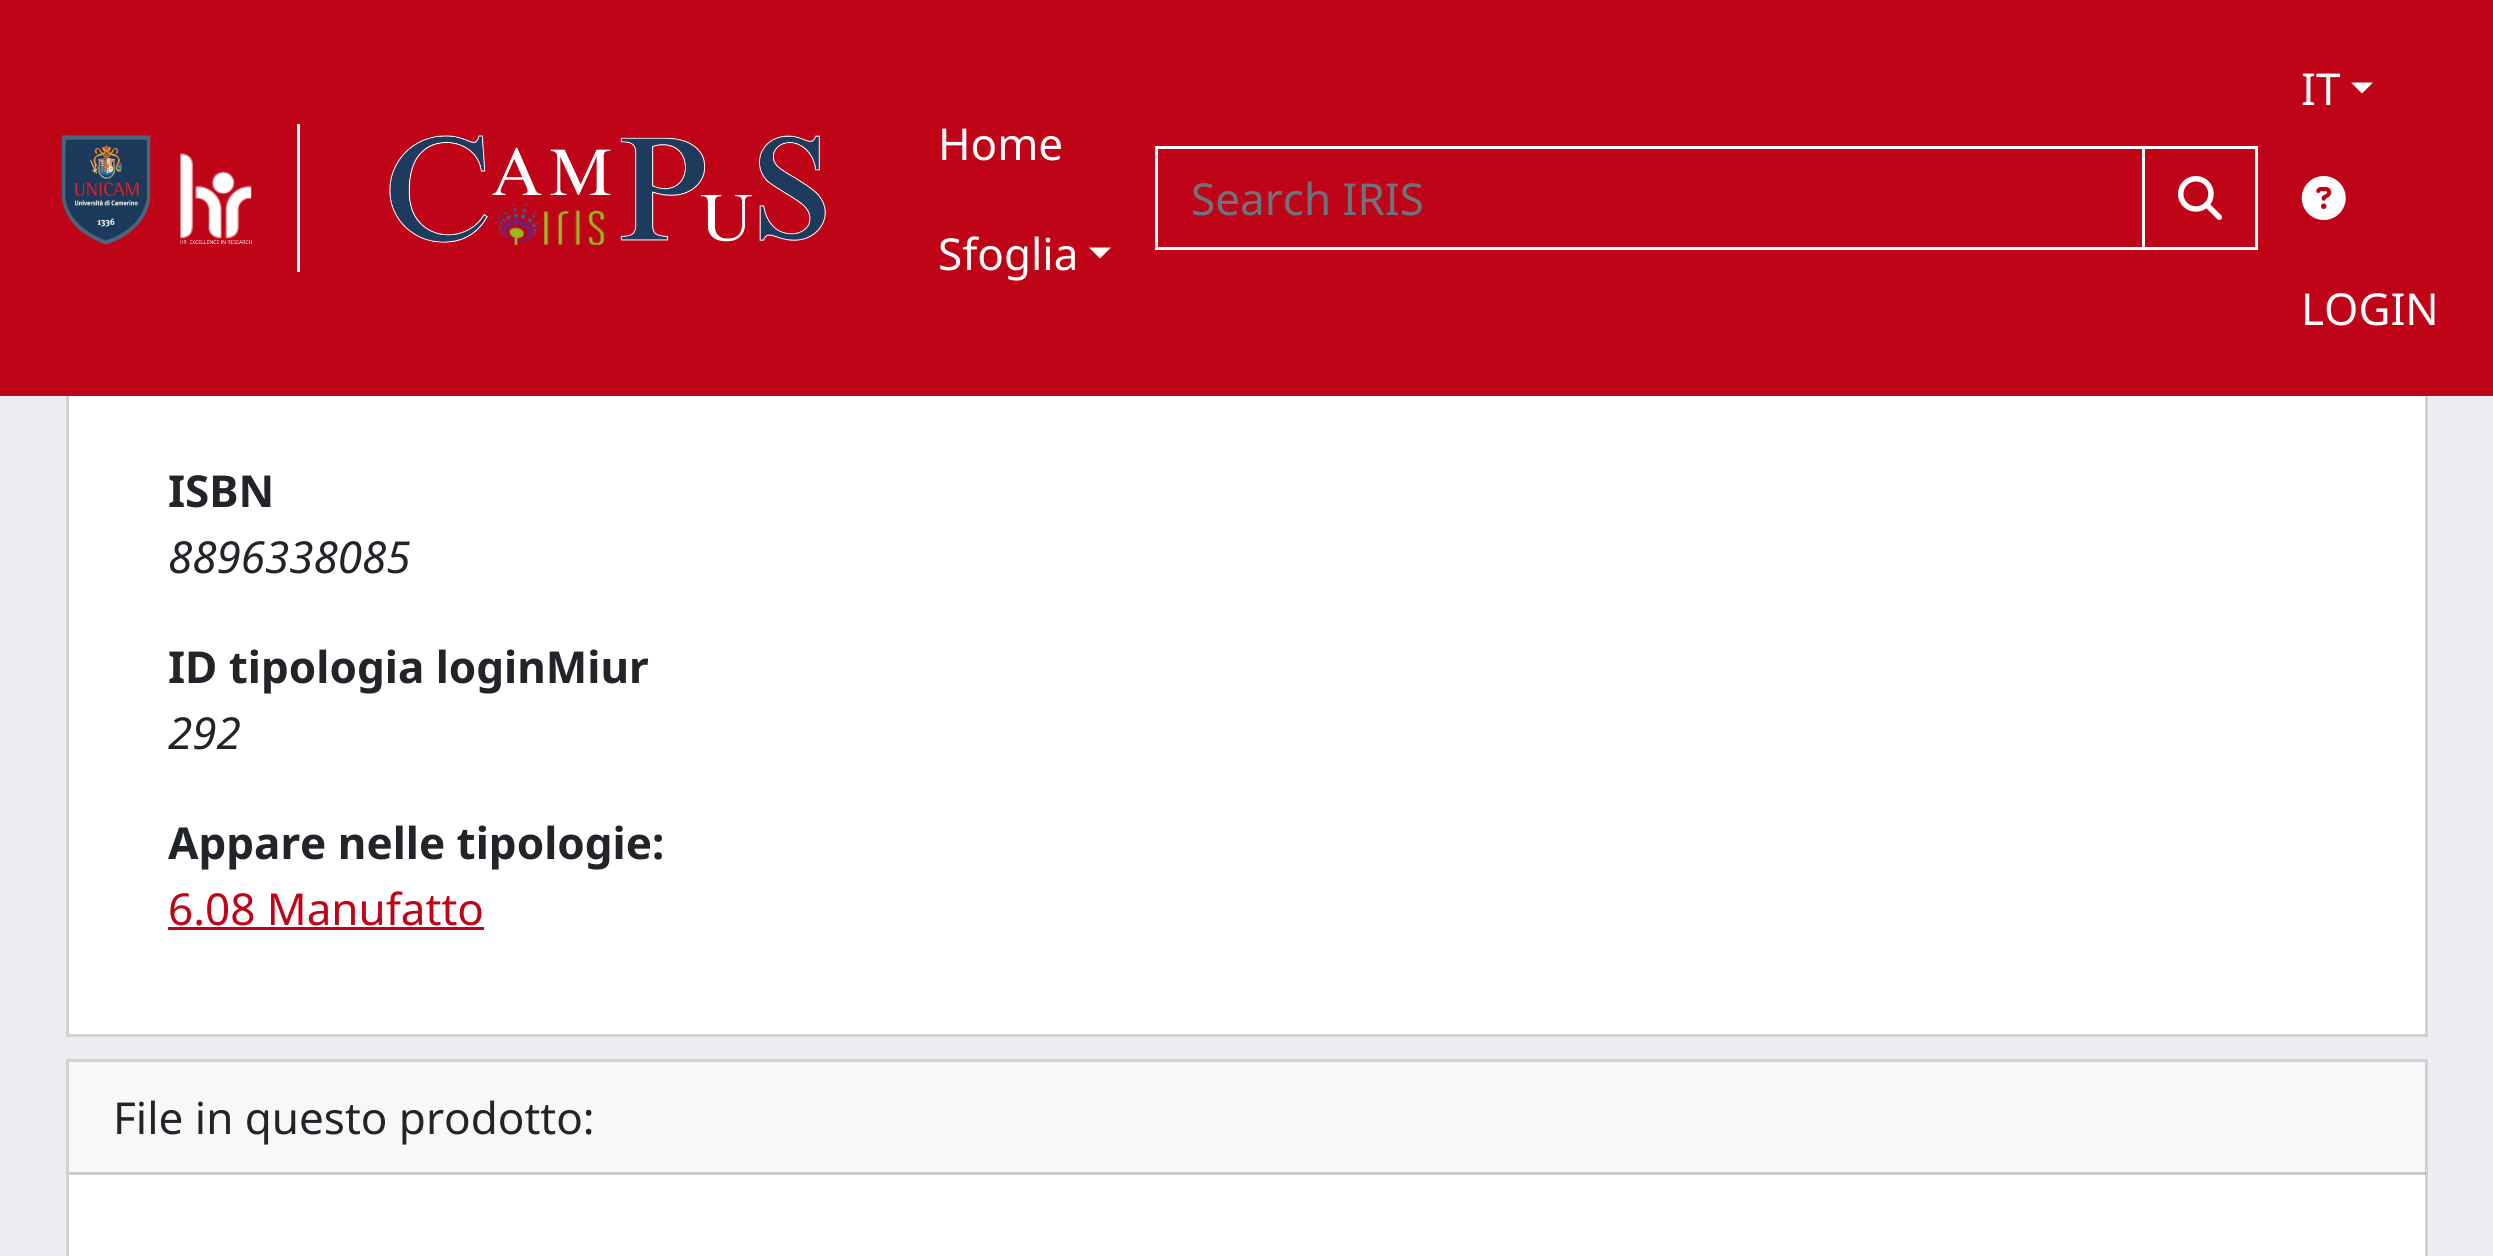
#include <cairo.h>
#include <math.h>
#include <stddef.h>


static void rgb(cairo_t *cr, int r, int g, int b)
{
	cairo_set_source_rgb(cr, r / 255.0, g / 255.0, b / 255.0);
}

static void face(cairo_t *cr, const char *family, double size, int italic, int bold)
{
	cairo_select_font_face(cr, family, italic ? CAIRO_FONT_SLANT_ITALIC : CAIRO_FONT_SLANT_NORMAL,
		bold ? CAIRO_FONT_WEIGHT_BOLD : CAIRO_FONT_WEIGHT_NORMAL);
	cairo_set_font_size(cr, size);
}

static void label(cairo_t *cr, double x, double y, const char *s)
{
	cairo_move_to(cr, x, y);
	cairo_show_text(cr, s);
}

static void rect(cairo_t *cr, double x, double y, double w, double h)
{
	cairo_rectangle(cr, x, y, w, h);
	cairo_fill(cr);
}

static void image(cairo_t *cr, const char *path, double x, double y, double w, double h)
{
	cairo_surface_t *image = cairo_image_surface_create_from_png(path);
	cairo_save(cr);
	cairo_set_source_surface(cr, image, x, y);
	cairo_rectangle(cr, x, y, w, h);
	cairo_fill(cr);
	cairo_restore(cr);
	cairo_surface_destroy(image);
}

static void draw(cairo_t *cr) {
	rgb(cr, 236, 237, 242);
	cairo_paint(cr);
	rgb(cr, 255, 255, 255);
	rect(cr, 69, 396, 2356, 638);
	cairo_rectangle(cr, 67.5, -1.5, 2359, 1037);
	rgb(cr, 210, 210, 210);
	cairo_set_line_width(cr, 3);
	cairo_stroke(cr);
	rgb(cr, 192, 4, 24);
	rect(cr, 0, 0, 2493, 396);
	rgb(cr, 255, 255, 255);
	rect(cr, 297, 124, 3, 148);
	image(cr, "image0.png", 61, 135, 191, 110);
	image(cr, "image1.png", 389, 135, 437, 110);
	face(cr, "Noto Sans", 44, 0, 0);
	label(cr, 938, 160, "Home");
	label(cr, 938, 270, "Sfoglia");
	cairo_new_path(cr);
	cairo_move_to(cr, 1089, 247.5);
	cairo_line_to(cr, 1111, 247.5);
	cairo_line_to(cr, 1100, 258.5);
	cairo_close_path(cr);
	cairo_fill(cr);
	cairo_rectangle(cr, 1156.5, 147.5, 987, 101);
	cairo_stroke(cr);
	rgb(cr, 108, 117, 125);
	label(cr, 1191, 215, "Search IRIS");
	cairo_rectangle(cr, 2143.5, 147.5, 113, 101);
	rgb(cr, 255, 255, 255);
	cairo_stroke(cr);
	image(cr, "image2.png", 2178, 176, 44, 44);
	label(cr, 2301, 105, "IT");
	cairo_new_path(cr);
	cairo_move_to(cr, 2351, 82.5);
	cairo_line_to(cr, 2373, 82.5);
	cairo_line_to(cr, 2362, 93.5);
	cairo_close_path(cr);
	cairo_fill(cr);
	image(cr, "image3.png", 2301, 176, 45, 44);
	label(cr, 2301, 325, "LOGIN");
	face(cr, "Noto Sans", 44, 0, 1);
	rgb(cr, 33, 37, 41);
	label(cr, 168, 507, "ISBN");
	face(cr, "Noto Sans", 44, 1, 0);
	label(cr, 168, 573, "8896338085");
	face(cr, "Noto Sans", 44, 0, 1);
	label(cr, 168, 683, "ID tipologia loginMiur");
	face(cr, "Noto Sans", 44, 1, 0);
	label(cr, 168, 749, "292");
	face(cr, "Noto Sans", 44, 0, 1);
	label(cr, 168, 859, "Appare nelle tipologie:");
	face(cr, "Noto Sans", 44, 0, 0);
	rgb(cr, 192, 4, 24);
	label(cr, 168, 925, "6.08 Manufatto");
	rect(cr, 168, 927, 316, 3);
	rgb(cr, 255, 255, 255);
	cairo_rectangle(cr, 67.5, 1060.5, 2359, 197);
	cairo_fill_preserve(cr);
	rgb(cr, 210, 210, 210);
	cairo_stroke(cr);
	cairo_set_source_rgba(cr, 0, 0, 0, 0.03);
	rect(cr, 69, 1062, 2357, 112);
	cairo_set_source_rgba(cr, 0, 0, 0, 0.18);
	rect(cr, 69, 1172, 2357, 3);
	rgb(cr, 33, 37, 41);
	label(cr, 113, 1134, "File in questo prodotto:");
}

int main(void) {
	cairo_surface_t *surface = cairo_image_surface_create(CAIRO_FORMAT_RGB24, 2493, 1256);
	cairo_t *cr = cairo_create(surface);
	cairo_font_options_t *options = cairo_font_options_create();
	cairo_font_options_set_hint_metrics(options, CAIRO_HINT_METRICS_OFF);
	cairo_font_options_set_hint_style(options, CAIRO_HINT_STYLE_NONE);
	cairo_set_font_options(cr, options);
	cairo_set_miter_limit(cr, 4);
	draw(cr);
	cairo_surface_write_to_png(surface, "render.png");
	cairo_font_options_destroy(options);
	cairo_destroy(cr);
	cairo_surface_destroy(surface);
	return 0;
}
